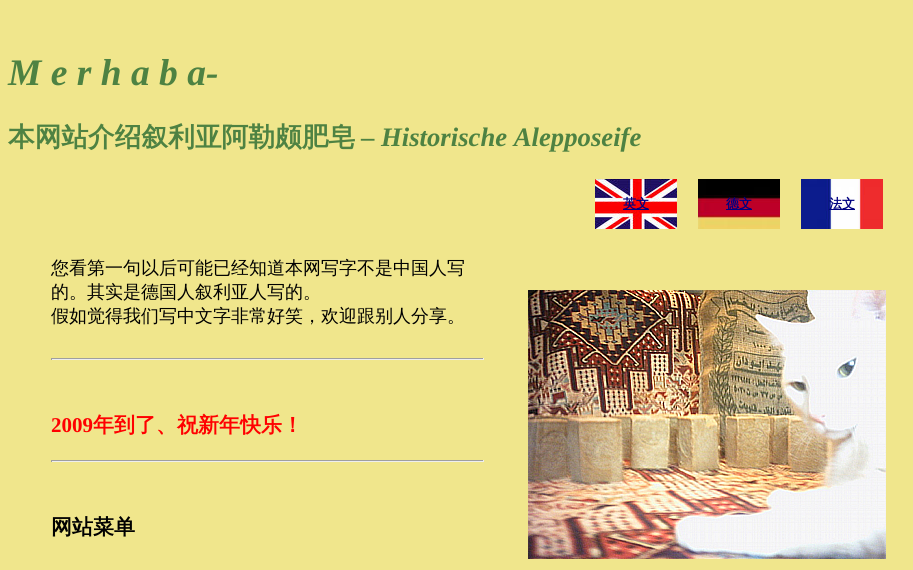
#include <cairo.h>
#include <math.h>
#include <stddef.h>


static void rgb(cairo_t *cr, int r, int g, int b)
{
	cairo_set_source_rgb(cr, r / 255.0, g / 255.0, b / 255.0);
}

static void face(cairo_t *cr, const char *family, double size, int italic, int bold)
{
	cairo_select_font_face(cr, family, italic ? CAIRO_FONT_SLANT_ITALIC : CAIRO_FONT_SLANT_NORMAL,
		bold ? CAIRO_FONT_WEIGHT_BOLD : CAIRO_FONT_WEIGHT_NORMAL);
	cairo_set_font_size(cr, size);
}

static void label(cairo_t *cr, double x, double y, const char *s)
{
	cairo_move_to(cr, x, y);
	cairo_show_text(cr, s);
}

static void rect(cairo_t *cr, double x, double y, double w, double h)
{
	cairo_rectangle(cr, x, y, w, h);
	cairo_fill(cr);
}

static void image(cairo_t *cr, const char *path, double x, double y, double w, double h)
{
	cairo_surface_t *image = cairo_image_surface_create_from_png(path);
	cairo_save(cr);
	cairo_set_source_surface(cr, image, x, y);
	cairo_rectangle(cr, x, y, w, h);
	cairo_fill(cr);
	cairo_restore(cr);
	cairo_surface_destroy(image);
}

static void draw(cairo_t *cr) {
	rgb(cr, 240, 230, 140);
	cairo_paint(cr);
	face(cr, "Liberation Serif", 37.5, 1, 1);
	rgb(cr, 78, 130, 66);
	label(cr, 8, 85, "M e r h a b a-");
	face(cr, "WenQuanYi Zen Hei", 26.7, 0, 1);
	label(cr, 8, 146, "本网站介绍叙利亚阿勒颇肥皂");
	face(cr, "Liberation Serif", 26.7, 0, 1);
	label(cr, 361, 146, "–");
	face(cr, "Liberation Serif", 26.7, 1, 1);
	label(cr, 381, 146, "Historische Alepposeife");
	image(cr, "image0.png", 595, 179, 82, 50);
	rgb(cr, 0, 0, 128);
	rect(cr, 623, 209, 26, 1);
	face(cr, "WenQuanYi Zen Hei", 13, 0, 1);
	label(cr, 623, 208, "英文");
	image(cr, "image1.png", 698, 179, 82, 50);
	rect(cr, 726, 209, 26, 1);
	label(cr, 726, 208, "德文");
	image(cr, "image2.png", 801, 179, 82, 50);
	rect(cr, 829, 209, 26, 1);
	label(cr, 829, 208, "法文");
	face(cr, "WenQuanYi Zen Hei Medium", 18, 0, 0);
	rgb(cr, 0, 0, 0);
	label(cr, 51, 274, "您看第一句以后可能已经知道本网写字不是中国人写");
	label(cr, 51, 298, "的。其实是德国人叙利亚人写的。");
	label(cr, 51, 322, "假如觉得我们写中文字非常好笑，欢迎跟别人分享。");
	rgb(cr, 159, 159, 159);
	rect(cr, 51, 358, 433, 1);
	rgb(cr, 238, 238, 238);
	rect(cr, 483, 358, 1, 2);
	rect(cr, 51, 359, 433, 1);
	rgb(cr, 159, 159, 159);
	rect(cr, 51, 358, 1, 2);
	face(cr, "Liberation Serif", 21, 0, 1);
	rgb(cr, 255, 0, 0);
	label(cr, 51, 432, "2009");
	face(cr, "WenQuanYi Zen Hei", 21, 0, 1);
	label(cr, 93, 432, "年到了、祝新年快乐！");
	rgb(cr, 159, 159, 159);
	rect(cr, 51, 460, 433, 1);
	rgb(cr, 238, 238, 238);
	rect(cr, 483, 460, 1, 2);
	rect(cr, 51, 461, 433, 1);
	rgb(cr, 159, 159, 159);
	rect(cr, 51, 460, 1, 2);
	rgb(cr, 0, 0, 0);
	label(cr, 51, 534, "网站菜单");
	image(cr, "image3.png", 528, 290, 358, 269);
}

int main(void) {
	cairo_surface_t *surface = cairo_image_surface_create(CAIRO_FORMAT_RGB24, 913, 570);
	cairo_t *cr = cairo_create(surface);
	cairo_font_options_t *options = cairo_font_options_create();
	cairo_font_options_set_hint_metrics(options, CAIRO_HINT_METRICS_OFF);
	cairo_font_options_set_hint_style(options, CAIRO_HINT_STYLE_NONE);
	cairo_set_font_options(cr, options);
	cairo_set_miter_limit(cr, 4);
	draw(cr);
	cairo_surface_write_to_png(surface, "render.png");
	cairo_font_options_destroy(options);
	cairo_destroy(cr);
	cairo_surface_destroy(surface);
	return 0;
}
